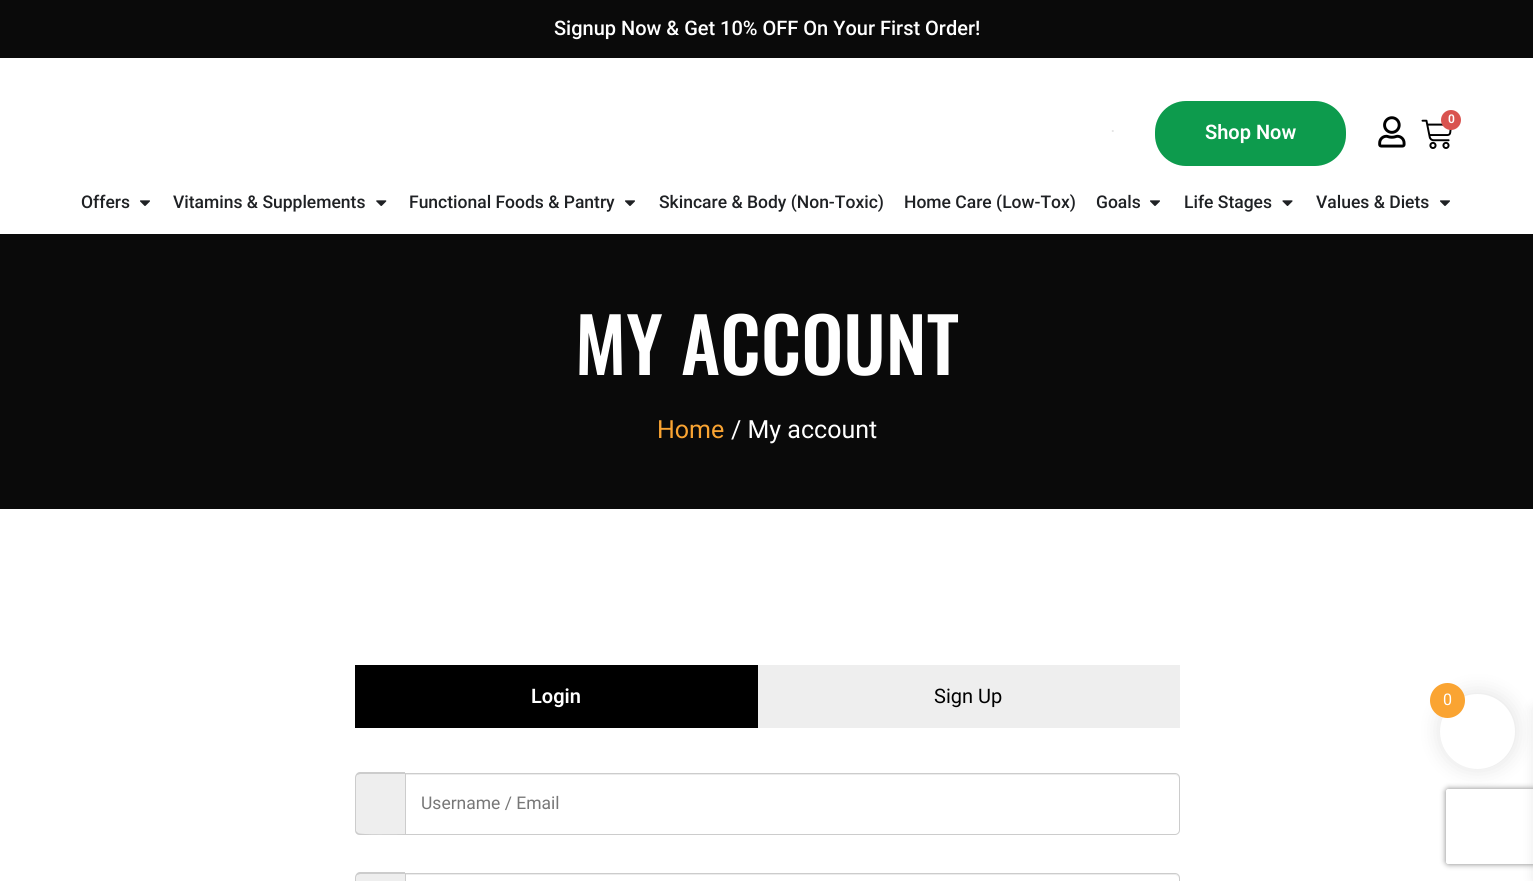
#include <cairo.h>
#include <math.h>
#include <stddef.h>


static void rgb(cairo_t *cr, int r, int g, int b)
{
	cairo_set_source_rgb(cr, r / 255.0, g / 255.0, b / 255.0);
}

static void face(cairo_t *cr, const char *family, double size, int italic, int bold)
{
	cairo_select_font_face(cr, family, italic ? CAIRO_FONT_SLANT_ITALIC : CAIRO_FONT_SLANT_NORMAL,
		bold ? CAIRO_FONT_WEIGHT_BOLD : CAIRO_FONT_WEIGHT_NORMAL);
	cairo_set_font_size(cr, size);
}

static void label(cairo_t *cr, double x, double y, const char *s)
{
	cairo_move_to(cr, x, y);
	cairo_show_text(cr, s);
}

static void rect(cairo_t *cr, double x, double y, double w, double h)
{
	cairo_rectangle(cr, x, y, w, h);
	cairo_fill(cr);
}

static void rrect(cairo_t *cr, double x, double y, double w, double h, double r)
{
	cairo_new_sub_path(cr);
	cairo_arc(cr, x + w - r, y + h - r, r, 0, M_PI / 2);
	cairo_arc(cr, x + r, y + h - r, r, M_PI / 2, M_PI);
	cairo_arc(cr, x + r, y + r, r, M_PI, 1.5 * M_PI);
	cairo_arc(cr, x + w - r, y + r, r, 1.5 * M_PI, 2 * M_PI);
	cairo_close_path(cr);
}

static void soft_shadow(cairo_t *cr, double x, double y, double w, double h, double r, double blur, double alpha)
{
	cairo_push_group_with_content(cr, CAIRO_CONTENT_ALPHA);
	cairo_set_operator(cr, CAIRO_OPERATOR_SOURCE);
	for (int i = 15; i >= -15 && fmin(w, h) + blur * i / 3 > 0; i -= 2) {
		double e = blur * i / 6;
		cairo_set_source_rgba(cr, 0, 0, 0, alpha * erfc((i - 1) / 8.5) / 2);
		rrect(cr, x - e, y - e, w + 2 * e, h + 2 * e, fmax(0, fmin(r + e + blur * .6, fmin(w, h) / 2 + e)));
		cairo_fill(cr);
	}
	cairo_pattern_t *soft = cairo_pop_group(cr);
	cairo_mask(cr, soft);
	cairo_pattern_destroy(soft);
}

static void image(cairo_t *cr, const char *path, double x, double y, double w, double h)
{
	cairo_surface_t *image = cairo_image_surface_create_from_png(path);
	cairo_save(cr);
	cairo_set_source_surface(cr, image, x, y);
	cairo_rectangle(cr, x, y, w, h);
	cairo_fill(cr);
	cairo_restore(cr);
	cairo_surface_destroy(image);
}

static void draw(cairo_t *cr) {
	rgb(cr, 255, 255, 255);
	cairo_paint(cr);
	rgb(cr, 10, 10, 10);
	rect(cr, 0, 0, 1533, 58);
	face(cr, "Roboto Medium", 20, 0, 0);
	rgb(cr, 255, 255, 255);
	label(cr, 554, 35, "Signup Now & Get 10% OFF On Your First Order!");
	cairo_new_path(cr);
	cairo_move_to(cr, 1112.5, 131);
	cairo_line_to(cr, 1113, 131);
	rgb(cr, 221, 221, 221);
	cairo_set_line_width(cr, 1.6);
	cairo_set_line_cap(cr, CAIRO_LINE_CAP_ROUND);
	cairo_stroke(cr);
	rgb(cr, 13, 155, 77);
	rrect(cr, 1155, 101, 191, 65, 31);
	cairo_fill(cr);
	face(cr, "Roboto SemiBold", 20, 0, 0);
	rgb(cr, 255, 255, 255);
	label(cr, 1205, 139, "Shop Now");
	image(cr, "image0.png", 1378, 116, 28, 32);
	image(cr, "image1.png", 1421, 119, 31, 30);
	rgb(cr, 217, 83, 79);
	cairo_arc(cr, 1451, 120, 10, 0, 2 * M_PI);
	cairo_fill(cr);
	face(cr, "Roboto SemiBold", 12, 0, 0);
	rgb(cr, 255, 255, 255);
	label(cr, 1448, 123, "0");
	face(cr, "Roboto Medium", 17.5, 0, 0);
	rgb(cr, 31, 33, 36);
	label(cr, 81, 208, "Offers");
	image(cr, "image2.png", 140, 200, 10, 6);
	label(cr, 173, 208, "Vitamins & Supplements");
	image(cr, "image3.png", 376, 200, 11, 6);
	label(cr, 409, 208, "Functional Foods & Pantry");
	image(cr, "image2.png", 625, 200, 10, 6);
	label(cr, 659, 208, "Skincare & Body (Non-Toxic)");
	label(cr, 904, 208, "Home Care (Low-Tox)");
	label(cr, 1096, 208, "Goals");
	image(cr, "image2.png", 1150, 200, 10, 6);
	label(cr, 1184, 208, "Life Stages");
	image(cr, "image4.png", 1282, 200, 11, 6);
	label(cr, 1316, 208, "Values & Diets");
	image(cr, "image2.png", 1440, 200, 10, 6);
	rgb(cr, 10, 10, 10);
	rect(cr, 0, 234, 1533, 275);
	face(cr, "Oswald Medium", 75, 0, 0);
	rgb(cr, 255, 255, 255);
	label(cr, 575, 375, "MY ACCOUNT");
	face(cr, "Roboto", 25, 0, 0);
	rgb(cr, 250, 164, 50);
	label(cr, 657, 438, "Home");
	rgb(cr, 255, 255, 255);
	label(cr, 731, 438, "/ My account");
	rgb(cr, 0, 0, 0);
	rect(cr, 355, 665, 403, 63);
	face(cr, "Roboto SemiBold", 20, 0, 0);
	rgb(cr, 255, 255, 255);
	label(cr, 531, 703, "Login");
	rgb(cr, 238, 238, 238);
	rect(cr, 758, 665, 422, 63);
	face(cr, "Roboto", 20, 0, 0);
	rgb(cr, 0, 0, 0);
	label(cr, 934, 703, "Sign Up");
	rgb(cr, 238, 238, 238);
	cairo_new_path(cr);
	cairo_move_to(cr, 360, 773);
	cairo_line_to(cr, 405, 773);
	cairo_line_to(cr, 405, 835);
	cairo_line_to(cr, 360, 835);
	cairo_curve_to(cr, 357, 835, 355, 833, 355, 830);
	cairo_line_to(cr, 355, 778);
	cairo_curve_to(cr, 355, 775, 357, 773, 360, 773);
	cairo_close_path(cr);
	cairo_fill(cr);
	rgb(cr, 204, 204, 204);
	cairo_set_fill_rule(cr, CAIRO_FILL_RULE_EVEN_ODD);
	cairo_new_path(cr);
	cairo_move_to(cr, 360, 772);
	cairo_line_to(cr, 405, 772);
	cairo_line_to(cr, 405, 835);
	cairo_line_to(cr, 360, 835);
	cairo_curve_to(cr, 357, 835, 355, 833, 355, 830);
	cairo_line_to(cr, 355, 778);
	cairo_curve_to(cr, 355, 775, 357, 772, 360, 772);
	cairo_close_path(cr);
	cairo_move_to(cr, 360, 774);
	cairo_line_to(cr, 405, 774);
	cairo_line_to(cr, 405, 834);
	cairo_curve_to(cr, 399, 834, 360, 835, 358, 833);
	cairo_line_to(cr, 356, 831);
	cairo_line_to(cr, 356, 777);
	cairo_line_to(cr, 357, 775);
	cairo_close_path(cr);
	cairo_fill(cr);
	rgb(cr, 236, 236, 236);
	cairo_set_fill_rule(cr, CAIRO_FILL_RULE_WINDING);
	cairo_new_path(cr);
	cairo_move_to(cr, 406, 775);
	cairo_line_to(cr, 1175, 775);
	cairo_curve_to(cr, 1177, 775, 1179, 777, 1179, 779);
	cairo_line_to(cr, 1179, 778);
	cairo_curve_to(cr, 1179, 776, 1177, 774, 1175, 774);
	cairo_line_to(cr, 406, 774);
	cairo_close_path(cr);
	cairo_fill(cr);
	cairo_new_path(cr);
	cairo_move_to(cr, 405.5, 773.5);
	cairo_line_to(cr, 1175, 773.5);
	cairo_curve_to(cr, 1177.5, 773.5, 1179.5, 775.5, 1179.5, 778);
	cairo_line_to(cr, 1179.5, 830);
	cairo_curve_to(cr, 1179.5, 832.5, 1177.5, 834.5, 1175, 834.5);
	cairo_line_to(cr, 405.5, 834.5);
	cairo_close_path(cr);
	rgb(cr, 204, 204, 204);
	cairo_set_line_width(cr, 1);
	cairo_set_line_cap(cr, CAIRO_LINE_CAP_BUTT);
	cairo_stroke(cr);
	face(cr, "Roboto", 17.5, 0, 0);
	rgb(cr, 119, 119, 119);
	label(cr, 421, 809, "Username / Email");
	rgb(cr, 238, 238, 238);
	cairo_new_path(cr);
	cairo_move_to(cr, 360, 873);
	cairo_line_to(cr, 405, 873);
	cairo_line_to(cr, 405, 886);
	cairo_line_to(cr, 360, 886);
	cairo_curve_to(cr, 357, 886, 355, 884, 355, 881);
	cairo_line_to(cr, 355, 878);
	cairo_curve_to(cr, 355, 875, 357, 873, 360, 873);
	cairo_close_path(cr);
	cairo_fill(cr);
	rgb(cr, 204, 204, 204);
	cairo_set_fill_rule(cr, CAIRO_FILL_RULE_EVEN_ODD);
	cairo_new_path(cr);
	cairo_move_to(cr, 360, 872);
	cairo_line_to(cr, 405, 872);
	cairo_line_to(cr, 405, 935);
	cairo_line_to(cr, 360, 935);
	cairo_curve_to(cr, 357, 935, 355, 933, 355, 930);
	cairo_line_to(cr, 355, 878);
	cairo_curve_to(cr, 355, 875, 357, 872, 360, 872);
	cairo_close_path(cr);
	cairo_move_to(cr, 360, 874);
	cairo_line_to(cr, 405, 874);
	cairo_line_to(cr, 405, 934);
	cairo_curve_to(cr, 399, 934, 360, 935, 358, 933);
	cairo_line_to(cr, 356, 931);
	cairo_line_to(cr, 356, 877);
	cairo_line_to(cr, 357, 875);
	cairo_close_path(cr);
	cairo_fill(cr);
	rgb(cr, 236, 236, 236);
	cairo_set_fill_rule(cr, CAIRO_FILL_RULE_WINDING);
	cairo_new_path(cr);
	cairo_move_to(cr, 406, 875);
	cairo_line_to(cr, 1175, 875);
	cairo_curve_to(cr, 1177, 875, 1179, 877, 1179, 879);
	cairo_line_to(cr, 1179, 878);
	cairo_curve_to(cr, 1179, 876, 1177, 874, 1175, 874);
	cairo_line_to(cr, 406, 874);
	cairo_close_path(cr);
	cairo_fill(cr);
	cairo_new_path(cr);
	cairo_move_to(cr, 405.5, 873.5);
	cairo_line_to(cr, 1175, 873.5);
	cairo_curve_to(cr, 1177.5, 873.5, 1179.5, 875.5, 1179.5, 878);
	cairo_line_to(cr, 1179.5, 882);
	cairo_curve_to(cr, 1179.5, 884.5, 1177.5, 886.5, 1175, 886.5);
	cairo_line_to(cr, 405.5, 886.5);
	cairo_close_path(cr);
	rgb(cr, 204, 204, 204);
	cairo_stroke(cr);
	rgb(cr, 0, 0, 0);
	soft_shadow(cr, 1438, 691, 80, 80, 40, 9.5, 0.1);
	rgb(cr, 255, 255, 255);
	cairo_arc(cr, 1477.5, 731.5, 37.5, 0, 2 * M_PI);
	cairo_fill(cr);
	rgb(cr, 250, 164, 50);
	cairo_arc(cr, 1447.5, 700.5, 17.5, 0, 2 * M_PI);
	cairo_fill(cr);
	face(cr, "Roboto", 16, 0, 0);
	rgb(cr, 255, 255, 255);
	label(cr, 1443, 705, "0");
	rgb(cr, 0, 0, 0);
	soft_shadow(cr, 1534, 708, 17, 172, 0, 6, 0.1);
	cairo_save(cr);
	cairo_set_fill_rule(cr, CAIRO_FILL_RULE_EVEN_ODD);
	cairo_new_path(cr);
	cairo_move_to(cr, 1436, 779);
	cairo_line_to(cr, 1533, 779);
	cairo_line_to(cr, 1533, 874);
	cairo_line_to(cr, 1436, 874);
	cairo_close_path(cr);
	cairo_move_to(cr, 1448.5, 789);
	cairo_line_to(cr, 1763.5, 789);
	cairo_curve_to(cr, 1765, 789, 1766, 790, 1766, 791.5);
	cairo_line_to(cr, 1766, 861.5);
	cairo_curve_to(cr, 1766, 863, 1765, 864, 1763.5, 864);
	cairo_line_to(cr, 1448.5, 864);
	cairo_curve_to(cr, 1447, 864, 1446, 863, 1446, 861.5);
	cairo_line_to(cr, 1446, 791.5);
	cairo_curve_to(cr, 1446, 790, 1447, 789, 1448.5, 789);
	cairo_close_path(cr);
	cairo_clip(cr);
	rgb(cr, 128, 128, 128);
	soft_shadow(cr, 1446, 789, 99, 75, 2.5, 3, 1);
	cairo_restore(cr);
}

int main(void) {
	cairo_surface_t *surface = cairo_image_surface_create(CAIRO_FORMAT_RGB24, 1533, 881);
	cairo_t *cr = cairo_create(surface);
	cairo_font_options_t *options = cairo_font_options_create();
	cairo_font_options_set_hint_metrics(options, CAIRO_HINT_METRICS_OFF);
	cairo_font_options_set_hint_style(options, CAIRO_HINT_STYLE_NONE);
	cairo_set_font_options(cr, options);
	cairo_set_miter_limit(cr, 4);
	draw(cr);
	cairo_surface_write_to_png(surface, "render.png");
	cairo_font_options_destroy(options);
	cairo_destroy(cr);
	cairo_surface_destroy(surface);
	return 0;
}
